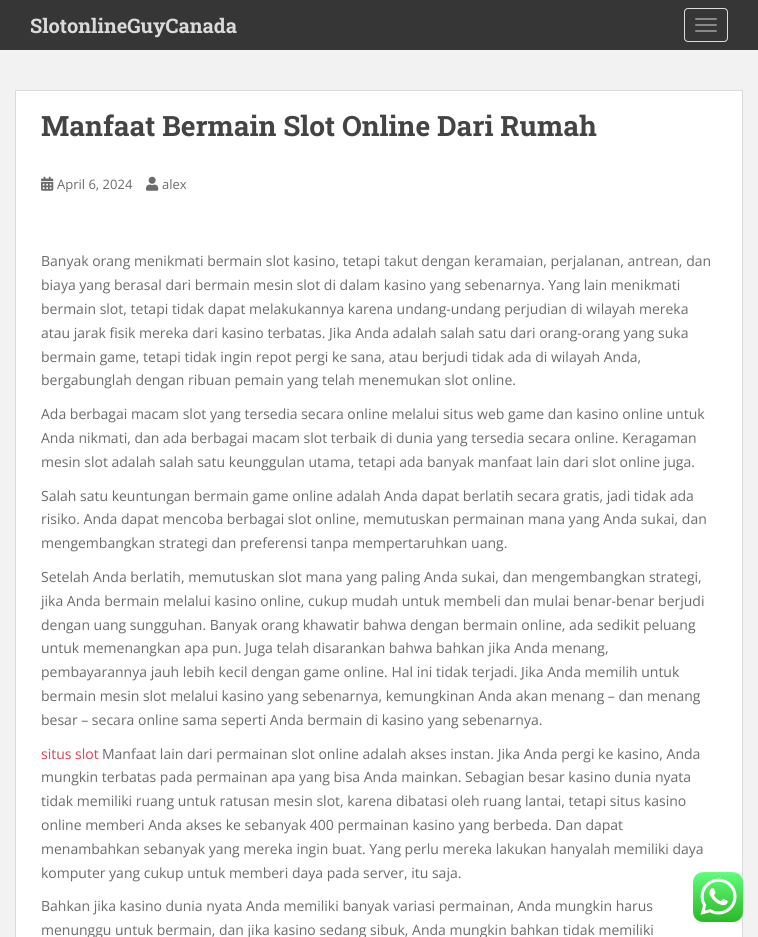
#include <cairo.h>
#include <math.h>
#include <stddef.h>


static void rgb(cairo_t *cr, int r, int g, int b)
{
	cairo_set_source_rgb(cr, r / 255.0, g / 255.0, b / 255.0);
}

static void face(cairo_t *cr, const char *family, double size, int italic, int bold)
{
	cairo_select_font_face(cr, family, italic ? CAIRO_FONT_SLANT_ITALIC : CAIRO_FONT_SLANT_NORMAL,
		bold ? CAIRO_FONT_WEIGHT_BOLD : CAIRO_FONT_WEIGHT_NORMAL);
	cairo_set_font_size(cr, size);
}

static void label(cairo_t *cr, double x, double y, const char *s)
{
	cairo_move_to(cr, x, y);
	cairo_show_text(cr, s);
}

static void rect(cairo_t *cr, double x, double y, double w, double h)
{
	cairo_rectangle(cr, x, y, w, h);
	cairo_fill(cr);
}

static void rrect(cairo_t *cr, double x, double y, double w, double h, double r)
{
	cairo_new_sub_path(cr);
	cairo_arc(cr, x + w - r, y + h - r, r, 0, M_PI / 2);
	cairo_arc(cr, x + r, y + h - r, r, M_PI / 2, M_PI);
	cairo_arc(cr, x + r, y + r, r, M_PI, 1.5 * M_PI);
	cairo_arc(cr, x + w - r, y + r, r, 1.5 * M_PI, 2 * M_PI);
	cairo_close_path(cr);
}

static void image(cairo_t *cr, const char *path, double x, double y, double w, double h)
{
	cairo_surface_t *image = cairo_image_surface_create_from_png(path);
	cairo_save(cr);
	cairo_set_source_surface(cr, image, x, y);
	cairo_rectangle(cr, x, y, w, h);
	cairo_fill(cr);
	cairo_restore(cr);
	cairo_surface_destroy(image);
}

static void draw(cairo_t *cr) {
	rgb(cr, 242, 242, 242);
	cairo_paint(cr);
	rgb(cr, 54, 54, 54);
	rect(cr, 0, 0, 758, 50);
	face(cr, "Roboto Slab", 20, 0, 1);
	rgb(cr, 218, 218, 218);
	label(cr, 30, 33, "SlotonlineGuyCanada");
	rrect(cr, 684.5, 8.5, 43, 33, 3.5);
	rgb(cr, 221, 221, 221);
	cairo_set_line_width(cr, 1);
	cairo_stroke(cr);
	rgb(cr, 136, 136, 136);
	rrect(cr, 695, 18, 22, 2, 1);
	cairo_fill(cr);
	rrect(cr, 695, 24, 22, 2, 1);
	cairo_fill(cr);
	rrect(cr, 695, 30, 22, 2, 1);
	cairo_fill(cr);
	rgb(cr, 255, 255, 255);
	cairo_rectangle(cr, 15.5, 90.5, 727, 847);
	cairo_fill_preserve(cr);
	rgb(cr, 218, 218, 218);
	cairo_stroke(cr);
	face(cr, "Roboto Slab", 28, 0, 1);
	rgb(cr, 68, 68, 68);
	label(cr, 41, 136, "Manfaat Bermain Slot Online Dari Rumah");
	image(cr, "image0.png", 41, 176, 13, 15);
	face(cr, "Open Sans", 13, 0, 0);
	rgb(cr, 107, 107, 107);
	label(cr, 57, 189, "April 6, 2024");
	image(cr, "image1.png", 146, 176, 13, 15);
	label(cr, 162, 189, "alex");
	face(cr, "Open Sans", 14, 0, 0);
	label(cr, 41, 266, "Banyak orang menikmati bermain slot kasino, tetapi takut dengan keramaian, perjalanan, antrean, dan");
	label(cr, 41, 290, "biaya yang berasal dari bermain mesin slot di dalam kasino yang sebenarnya. Yang lain menikmati");
	label(cr, 41, 314, "bermain slot, tetapi tidak dapat melakukannya karena undang-undang perjudian di wilayah mereka");
	label(cr, 41, 338, "atau jarak fisik mereka dari kasino terbatas. Jika Anda adalah salah satu dari orang-orang yang suka");
	label(cr, 41, 362, "bermain game, tetapi tidak ingin repot pergi ke sana, atau berjudi tidak ada di wilayah Anda,");
	label(cr, 41, 385, "bergabunglah dengan ribuan pemain yang telah menemukan slot online.");
	label(cr, 41, 419, "Ada berbagai macam slot yang tersedia secara online melalui situs web game dan kasino online untuk");
	label(cr, 41, 443, "Anda nikmati, dan ada berbagai macam slot terbaik di dunia yang tersedia secara online. Keragaman");
	label(cr, 41, 467, "mesin slot adalah salah satu keunggulan utama, tetapi ada banyak manfaat lain dari slot online juga.");
	label(cr, 41, 501, "Salah satu keuntungan bermain game online adalah Anda dapat berlatih secara gratis, jadi tidak ada");
	label(cr, 41, 524, "risiko. Anda dapat mencoba berbagai slot online, memutuskan permainan mana yang Anda sukai, dan");
	label(cr, 41, 548, "mengembangkan strategi dan preferensi tanpa mempertaruhkan uang.");
	label(cr, 41, 582, "Setelah Anda berlatih, memutuskan slot mana yang paling Anda sukai, dan mengembangkan strategi,");
	label(cr, 41, 606, "jika Anda bermain melalui kasino online, cukup mudah untuk membeli dan mulai benar-benar berjudi");
	label(cr, 41, 630, "dengan uang sungguhan. Banyak orang khawatir bahwa dengan bermain online, ada sedikit peluang");
	label(cr, 41, 653, "untuk memenangkan apa pun. Juga telah disarankan bahwa bahkan jika Anda menang,");
	label(cr, 41, 677, "pembayarannya jauh lebih kecil dengan game online. Hal ini tidak terjadi. Jika Anda memilih untuk");
	label(cr, 41, 701, "bermain mesin slot melalui kasino yang sebenarnya, kemungkinan Anda akan menang – dan menang");
	label(cr, 41, 725, "besar – secara online sama seperti Anda bermain di kasino yang sebenarnya.");
	rgb(cr, 218, 68, 83);
	label(cr, 41, 759, "situs slot");
	rgb(cr, 107, 107, 107);
	label(cr, 102, 759, "Manfaat lain dari permainan slot online adalah akses instan. Jika Anda pergi ke kasino, Anda");
	label(cr, 41, 782, "mungkin terbatas pada permainan apa yang bisa Anda mainkan. Sebagian besar kasino dunia nyata");
	label(cr, 41, 806, "tidak memiliki ruang untuk ratusan mesin slot, karena dibatasi oleh ruang lantai, tetapi situs kasino");
	label(cr, 41, 830, "online memberi Anda akses ke sebanyak 400 permainan kasino yang berbeda. Dan dapat");
	label(cr, 41, 854, "menambahkan sebanyak yang mereka ingin buat. Yang perlu mereka lakukan hanyalah memiliki daya");
	label(cr, 41, 878, "komputer yang cukup untuk memberi daya pada server, itu saja.");
	label(cr, 41, 911, "Bahkan jika kasino dunia nyata Anda memiliki banyak variasi permainan, Anda mungkin harus");
	label(cr, 41, 935, "menunggu untuk bermain, dan jika kasino sedang sibuk, Anda mungkin bahkan tidak memiliki");
	image(cr, "image2.png", 693, 872, 50, 50);
}

int main(void) {
	cairo_surface_t *surface = cairo_image_surface_create(CAIRO_FORMAT_RGB24, 758, 937);
	cairo_t *cr = cairo_create(surface);
	cairo_font_options_t *options = cairo_font_options_create();
	cairo_font_options_set_hint_metrics(options, CAIRO_HINT_METRICS_OFF);
	cairo_font_options_set_hint_style(options, CAIRO_HINT_STYLE_NONE);
	cairo_set_font_options(cr, options);
	cairo_set_miter_limit(cr, 4);
	draw(cr);
	cairo_surface_write_to_png(surface, "render.png");
	cairo_font_options_destroy(options);
	cairo_destroy(cr);
	cairo_surface_destroy(surface);
	return 0;
}
